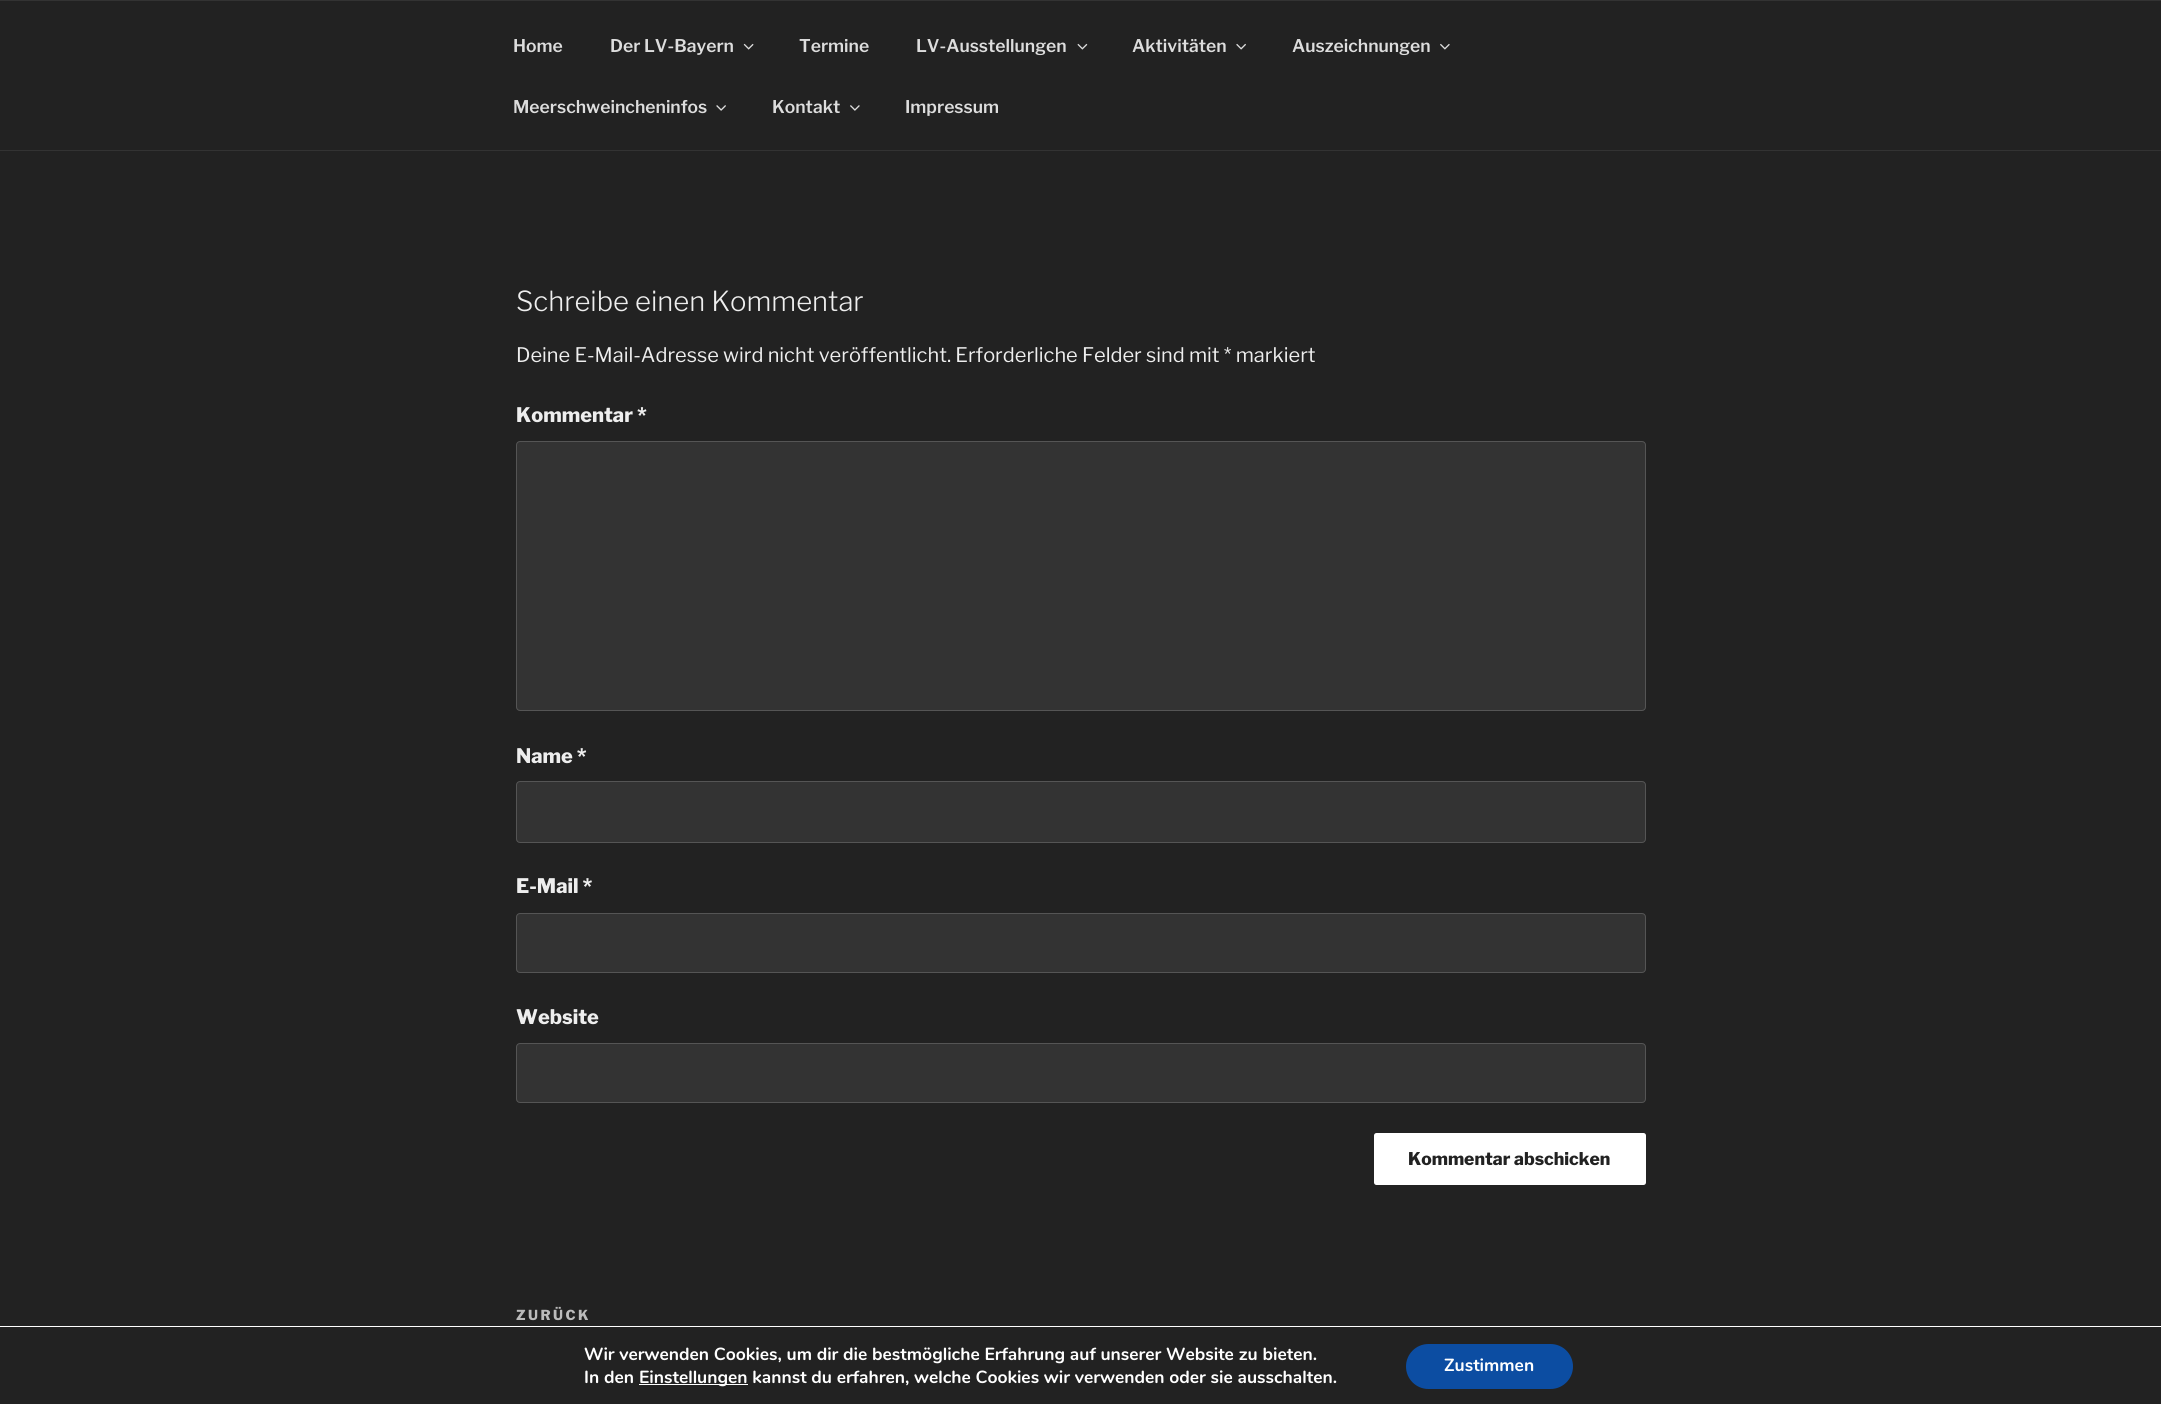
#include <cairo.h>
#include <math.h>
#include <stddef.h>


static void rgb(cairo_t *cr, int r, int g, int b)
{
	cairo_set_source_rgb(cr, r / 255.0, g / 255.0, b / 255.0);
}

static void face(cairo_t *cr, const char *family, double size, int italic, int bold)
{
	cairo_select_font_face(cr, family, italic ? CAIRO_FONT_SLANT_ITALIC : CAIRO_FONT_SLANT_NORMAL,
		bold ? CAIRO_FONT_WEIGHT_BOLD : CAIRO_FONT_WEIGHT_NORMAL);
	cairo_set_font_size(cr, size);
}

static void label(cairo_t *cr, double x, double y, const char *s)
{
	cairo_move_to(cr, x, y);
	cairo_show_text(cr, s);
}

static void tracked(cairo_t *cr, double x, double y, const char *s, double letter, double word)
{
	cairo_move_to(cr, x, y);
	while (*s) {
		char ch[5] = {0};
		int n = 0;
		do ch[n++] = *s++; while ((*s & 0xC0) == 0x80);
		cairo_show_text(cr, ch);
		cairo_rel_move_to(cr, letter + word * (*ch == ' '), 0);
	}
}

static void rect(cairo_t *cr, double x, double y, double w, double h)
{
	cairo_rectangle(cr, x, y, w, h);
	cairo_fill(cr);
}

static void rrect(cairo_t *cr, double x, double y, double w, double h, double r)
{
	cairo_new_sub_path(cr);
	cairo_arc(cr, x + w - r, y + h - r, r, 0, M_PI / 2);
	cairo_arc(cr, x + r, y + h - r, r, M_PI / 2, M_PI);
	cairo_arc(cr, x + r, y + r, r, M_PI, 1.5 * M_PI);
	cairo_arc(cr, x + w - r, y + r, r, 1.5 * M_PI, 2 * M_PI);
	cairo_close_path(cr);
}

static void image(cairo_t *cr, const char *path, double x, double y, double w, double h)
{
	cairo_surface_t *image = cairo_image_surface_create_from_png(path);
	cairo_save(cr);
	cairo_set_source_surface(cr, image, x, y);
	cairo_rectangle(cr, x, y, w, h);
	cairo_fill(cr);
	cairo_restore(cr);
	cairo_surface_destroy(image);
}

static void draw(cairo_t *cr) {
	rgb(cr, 34, 34, 34);
	cairo_paint(cr);
	rgb(cr, 51, 51, 51);
	rect(cr, 0, 0, 2161, 1);
	rect(cr, 0, 150, 2161, 1);
	face(cr, "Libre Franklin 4 Thin", 17.5, 0, 0);
	rgb(cr, 221, 221, 221);
	label(cr, 513, 52, "Home");
	label(cr, 610, 52, "Der LV-Bayern");
	image(cr, "image0.png", 743, 43, 11, 7);
	label(cr, 799, 52, "Termine");
	label(cr, 916, 52, "LV-Ausstellungen");
	image(cr, "image1.png", 1077, 43, 11, 7);
	label(cr, 1132, 52, "Aktivitäten");
	image(cr, "image2.png", 1236, 43, 10, 7);
	label(cr, 1292, 52, "Auszeichnungen");
	image(cr, "image3.png", 1440, 43, 10, 7);
	label(cr, 513, 113, "Meerschweincheninfos");
	image(cr, "image4.png", 716, 105, 10, 6);
	label(cr, 772, 113, "Kontakt");
	image(cr, "image5.png", 850, 105, 10, 6);
	label(cr, 905, 113, "Impressum");
	face(cr, "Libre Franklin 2 Thin", 27.5, 0, 0);
	rgb(cr, 238, 238, 238);
	label(cr, 516, 311, "Schreibe einen Kommentar");
	face(cr, "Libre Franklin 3 Thin", 20, 0, 0);
	label(cr, 516, 362, "Deine E-Mail-Adresse wird nicht veröffentlicht. Erforderliche Felder sind mit * markiert");
	face(cr, "Libre Franklin Thin", 20, 0, 0);
	label(cr, 516, 422, "Kommentar *");
	rgb(cr, 51, 51, 51);
	rrect(cr, 516.5, 441.5, 1129, 269, 3.5);
	cairo_fill_preserve(cr);
	rgb(cr, 85, 85, 85);
	cairo_set_line_width(cr, 1);
	cairo_stroke(cr);
	rgb(cr, 238, 238, 238);
	label(cr, 516, 763, "Name *");
	rgb(cr, 51, 51, 51);
	rrect(cr, 516.5, 781.5, 1129, 61, 3.5);
	cairo_fill_preserve(cr);
	rgb(cr, 85, 85, 85);
	cairo_stroke(cr);
	rgb(cr, 238, 238, 238);
	label(cr, 516, 893, "E-Mail *");
	rgb(cr, 51, 51, 51);
	rrect(cr, 516.5, 913.5, 1129, 59, 3.5);
	cairo_fill_preserve(cr);
	rgb(cr, 85, 85, 85);
	cairo_stroke(cr);
	rgb(cr, 238, 238, 238);
	label(cr, 516, 1024, "Website");
	rgb(cr, 51, 51, 51);
	rrect(cr, 516.5, 1043.5, 1129, 59, 3.5);
	cairo_fill_preserve(cr);
	rgb(cr, 85, 85, 85);
	cairo_stroke(cr);
	rgb(cr, 255, 255, 255);
	rrect(cr, 1374, 1133, 272, 52, 2.5);
	cairo_fill(cr);
	face(cr, "Libre Franklin Thin", 17.5, 0, 0);
	rgb(cr, 34, 34, 34);
	label(cr, 1408, 1165, "Kommentar abschicken");
	face(cr, "Libre Franklin Thin", 13.75, 0, 0);
	rgb(cr, 187, 187, 187);
	tracked(cr, 516, 1320, "ZURÜCK", 2.5, 0);
	rgb(cr, 255, 255, 255);
	rect(cr, 0, 1326, 2161, 1);
	face(cr, "Nunito", 17.5, 0, 1);
	label(cr, 584, 1360, "Wir verwenden Cookies, um dir die bestmögliche Erfahrung auf unserer Website zu bieten.");
	label(cr, 584, 1383, "In den");
	rect(cr, 639, 1384, 109, 1);
	label(cr, 639, 1383, "Einstellungen kannst du erfahren, welche Cookies wir verwenden oder sie ausschalten.");
	rgb(cr, 12, 77, 162);
	rrect(cr, 1406, 1344, 167, 45, 22.5);
	cairo_fill(cr);
	rgb(cr, 255, 255, 255);
	label(cr, 1444, 1371, "Zustimmen");
}

int main(void) {
	cairo_surface_t *surface = cairo_image_surface_create(CAIRO_FORMAT_RGB24, 2161, 1404);
	cairo_t *cr = cairo_create(surface);
	cairo_font_options_t *options = cairo_font_options_create();
	cairo_font_options_set_hint_metrics(options, CAIRO_HINT_METRICS_OFF);
	cairo_font_options_set_hint_style(options, CAIRO_HINT_STYLE_NONE);
	cairo_set_font_options(cr, options);
	cairo_set_miter_limit(cr, 4);
	draw(cr);
	cairo_surface_write_to_png(surface, "render.png");
	cairo_font_options_destroy(options);
	cairo_destroy(cr);
	cairo_surface_destroy(surface);
	return 0;
}
